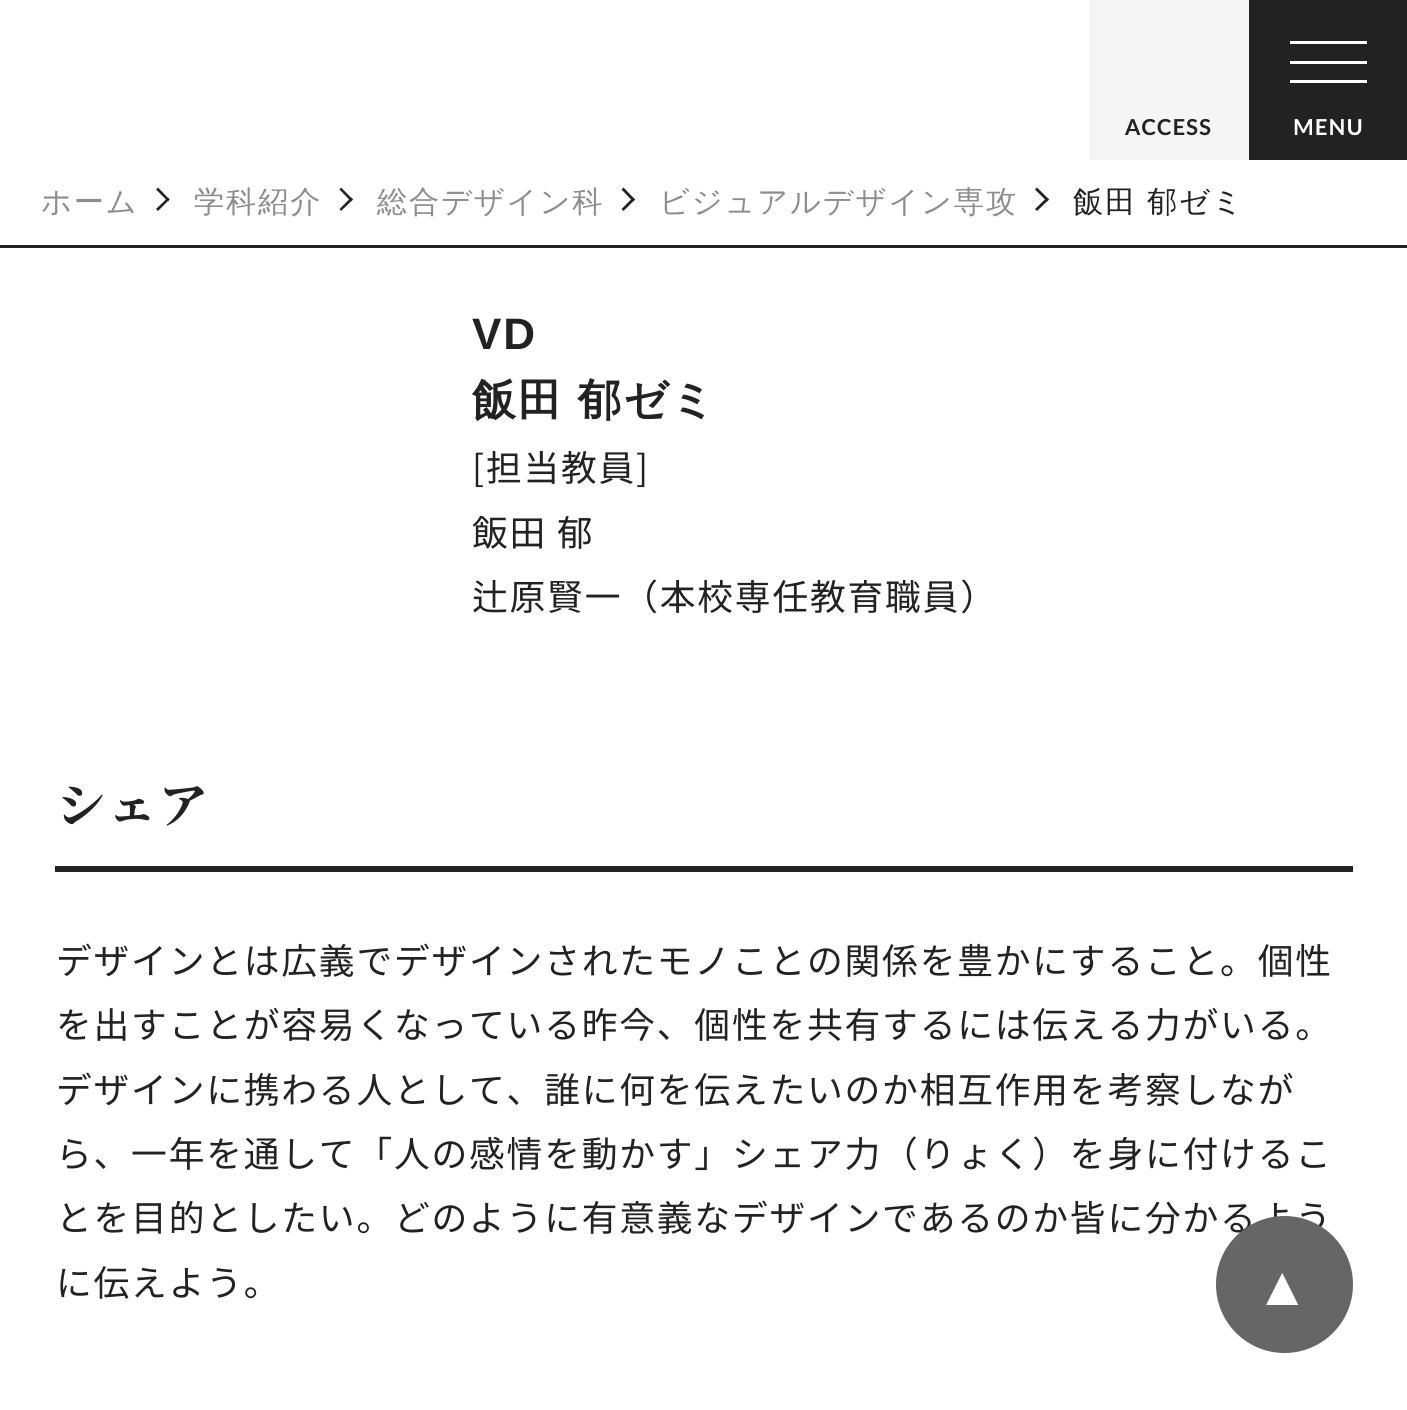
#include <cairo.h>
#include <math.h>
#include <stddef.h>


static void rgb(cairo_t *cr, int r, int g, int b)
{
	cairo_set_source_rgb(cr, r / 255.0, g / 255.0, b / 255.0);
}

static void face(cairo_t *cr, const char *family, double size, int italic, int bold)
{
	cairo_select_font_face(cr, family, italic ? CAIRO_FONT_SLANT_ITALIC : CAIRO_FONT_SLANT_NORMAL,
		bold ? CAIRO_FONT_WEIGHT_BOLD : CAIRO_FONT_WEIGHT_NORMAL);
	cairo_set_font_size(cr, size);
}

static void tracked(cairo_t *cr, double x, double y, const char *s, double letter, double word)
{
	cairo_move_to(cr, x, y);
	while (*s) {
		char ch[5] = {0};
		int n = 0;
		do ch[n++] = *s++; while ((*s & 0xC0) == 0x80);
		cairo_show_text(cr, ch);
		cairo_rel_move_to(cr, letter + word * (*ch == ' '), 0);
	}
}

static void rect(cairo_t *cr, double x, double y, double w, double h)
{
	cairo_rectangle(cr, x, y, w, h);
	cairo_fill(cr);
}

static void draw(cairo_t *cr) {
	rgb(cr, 255, 255, 255);
	cairo_paint(cr);
	rgb(cr, 245, 245, 245);
	rect(cr, 1089, 0, 160, 160);
	face(cr, "Lato", 22, 0, 1);
	rgb(cr, 34, 34, 34);
	tracked(cr, 1125, 135, "ACCESS", 1, 0);
	rect(cr, 1249, 0, 158, 160);
	rgb(cr, 255, 255, 255);
	rect(cr, 1290, 41, 77, 3);
	rect(cr, 1290, 61, 77, 3);
	rect(cr, 1290, 80, 77, 3);
	tracked(cr, 1293, 135, "MENU", 1, 0);
	rgb(cr, 34, 34, 34);
	rect(cr, 0, 245, 1407, 3);
	face(cr, "WenQuanYi Zen Hei Medium", 30.25, 0, 0);
	rgb(cr, 143, 140, 140);
	tracked(cr, 41, 212, "ホーム", 1.8, 0);
	rgb(cr, 34, 34, 34);
	cairo_new_path(cr);
	cairo_move_to(cr, 158, 187.5);
	cairo_line_to(cr, 169.5, 199.5);
	cairo_line_to(cr, 168, 201.5);
	cairo_line_to(cr, 156, 189.5);
	cairo_close_path(cr);
	cairo_fill(cr);
	cairo_new_path(cr);
	cairo_move_to(cr, 168, 197.5);
	cairo_line_to(cr, 169.5, 199.5);
	cairo_line_to(cr, 158, 211);
	cairo_line_to(cr, 156, 209);
	cairo_close_path(cr);
	cairo_fill(cr);
	rgb(cr, 143, 140, 140);
	tracked(cr, 194, 212, "学科紹介", 1.8, 0);
	rgb(cr, 34, 34, 34);
	cairo_new_path(cr);
	cairo_move_to(cr, 341, 187.5);
	cairo_line_to(cr, 353, 199.5);
	cairo_line_to(cr, 351, 201.5);
	cairo_line_to(cr, 339.5, 189.5);
	cairo_close_path(cr);
	cairo_fill(cr);
	cairo_new_path(cr);
	cairo_move_to(cr, 351, 197.5);
	cairo_line_to(cr, 353, 199.5);
	cairo_line_to(cr, 341, 211);
	cairo_line_to(cr, 339.5, 209);
	cairo_close_path(cr);
	cairo_fill(cr);
	rgb(cr, 143, 140, 140);
	tracked(cr, 377, 212, "総合デザイン科", 1.8, 0);
	rgb(cr, 34, 34, 34);
	cairo_new_path(cr);
	cairo_move_to(cr, 623.5, 187.5);
	cairo_line_to(cr, 635, 199.5);
	cairo_line_to(cr, 633, 201.5);
	cairo_line_to(cr, 621.5, 189.5);
	cairo_close_path(cr);
	cairo_fill(cr);
	cairo_new_path(cr);
	cairo_move_to(cr, 633, 197.5);
	cairo_line_to(cr, 635, 199.5);
	cairo_line_to(cr, 623.5, 211);
	cairo_line_to(cr, 621.5, 209);
	cairo_close_path(cr);
	cairo_fill(cr);
	rgb(cr, 143, 140, 140);
	tracked(cr, 659, 212, "ビジュアルデザイン専攻", 1.8, 0);
	rgb(cr, 34, 34, 34);
	cairo_new_path(cr);
	cairo_move_to(cr, 1037, 187.5);
	cairo_line_to(cr, 1049, 199.5);
	cairo_line_to(cr, 1047, 201.5);
	cairo_line_to(cr, 1035, 189.5);
	cairo_close_path(cr);
	cairo_fill(cr);
	cairo_new_path(cr);
	cairo_move_to(cr, 1047, 197.5);
	cairo_line_to(cr, 1049, 199.5);
	cairo_line_to(cr, 1037, 211);
	cairo_line_to(cr, 1035, 209);
	cairo_close_path(cr);
	cairo_fill(cr);
	tracked(cr, 1073, 212, "飯田 郁ゼミ", 1.8, -1);
	face(cr, "Liberation Sans", 44, 0, 1);
	tracked(cr, 472, 349, "VD", 1.8, 0);
	face(cr, "WenQuanYi Zen Hei", 44, 0, 1);
	tracked(cr, 472, 415, "飯田 郁ゼミ", 1.8, -1);
	face(cr, "Noto Sans JP", 35.75, 0, 0);
	tracked(cr, 472, 481, "[担当教員]", 1.8, 0);
	tracked(cr, 472, 546, "飯田 郁", 1.8, 0);
	tracked(cr, 472, 610, "辻原賢一（本校専任教育職員）", 1.8, 0);
	rect(cr, 55, 866, 1298, 6);
	face(cr, "Noto Serif JP", 49.5, 0, 1);
	tracked(cr, 56, 823, "シェア", 1.8, 0);
	face(cr, "Noto Sans JP", 35.75, 0, 0);
	tracked(cr, 56, 974, "デザインとは広義でデザインされたモノことの関係を豊かにすること。個性", 1.8, 0);
	tracked(cr, 56, 1038, "を出すことが容易くなっている昨今、個性を共有するには伝える力がいる。", 1.8, 0);
	tracked(cr, 56, 1103, "デザインに携わる人として、誰に何を伝えたいのか相互作用を考察しなが", 1.8, 0);
	tracked(cr, 56, 1167, "ら、一年を通して「人の感情を動かす」シェア力（りょく）を身に付けるこ", 1.8, 0);
	tracked(cr, 56, 1231, "とを目的としたい。どのように有意義なデザインであるのか皆に分かるよう", 1.8, 0);
	tracked(cr, 56, 1296, "に伝えよう。", 1.8, 0);
	rgb(cr, 102, 102, 102);
	cairo_new_path(cr);
	cairo_arc(cr, 1284.5, 1284.5, 68.5, 0, 2 * M_PI);
	cairo_fill(cr);
	face(cr, "Liberation Sans", 55, 0, 0);
	rgb(cr, 255, 255, 255);
	tracked(cr, 1255, 1305, "▲", 1.8, 0);
}

int main(void) {
	cairo_surface_t *surface = cairo_image_surface_create(CAIRO_FORMAT_RGB24, 1407, 1410);
	cairo_t *cr = cairo_create(surface);
	cairo_font_options_t *options = cairo_font_options_create();
	cairo_font_options_set_hint_metrics(options, CAIRO_HINT_METRICS_OFF);
	cairo_font_options_set_hint_style(options, CAIRO_HINT_STYLE_NONE);
	cairo_set_font_options(cr, options);
	cairo_set_miter_limit(cr, 4);
	draw(cr);
	cairo_surface_write_to_png(surface, "render.png");
	cairo_font_options_destroy(options);
	cairo_destroy(cr);
	cairo_surface_destroy(surface);
	return 0;
}
